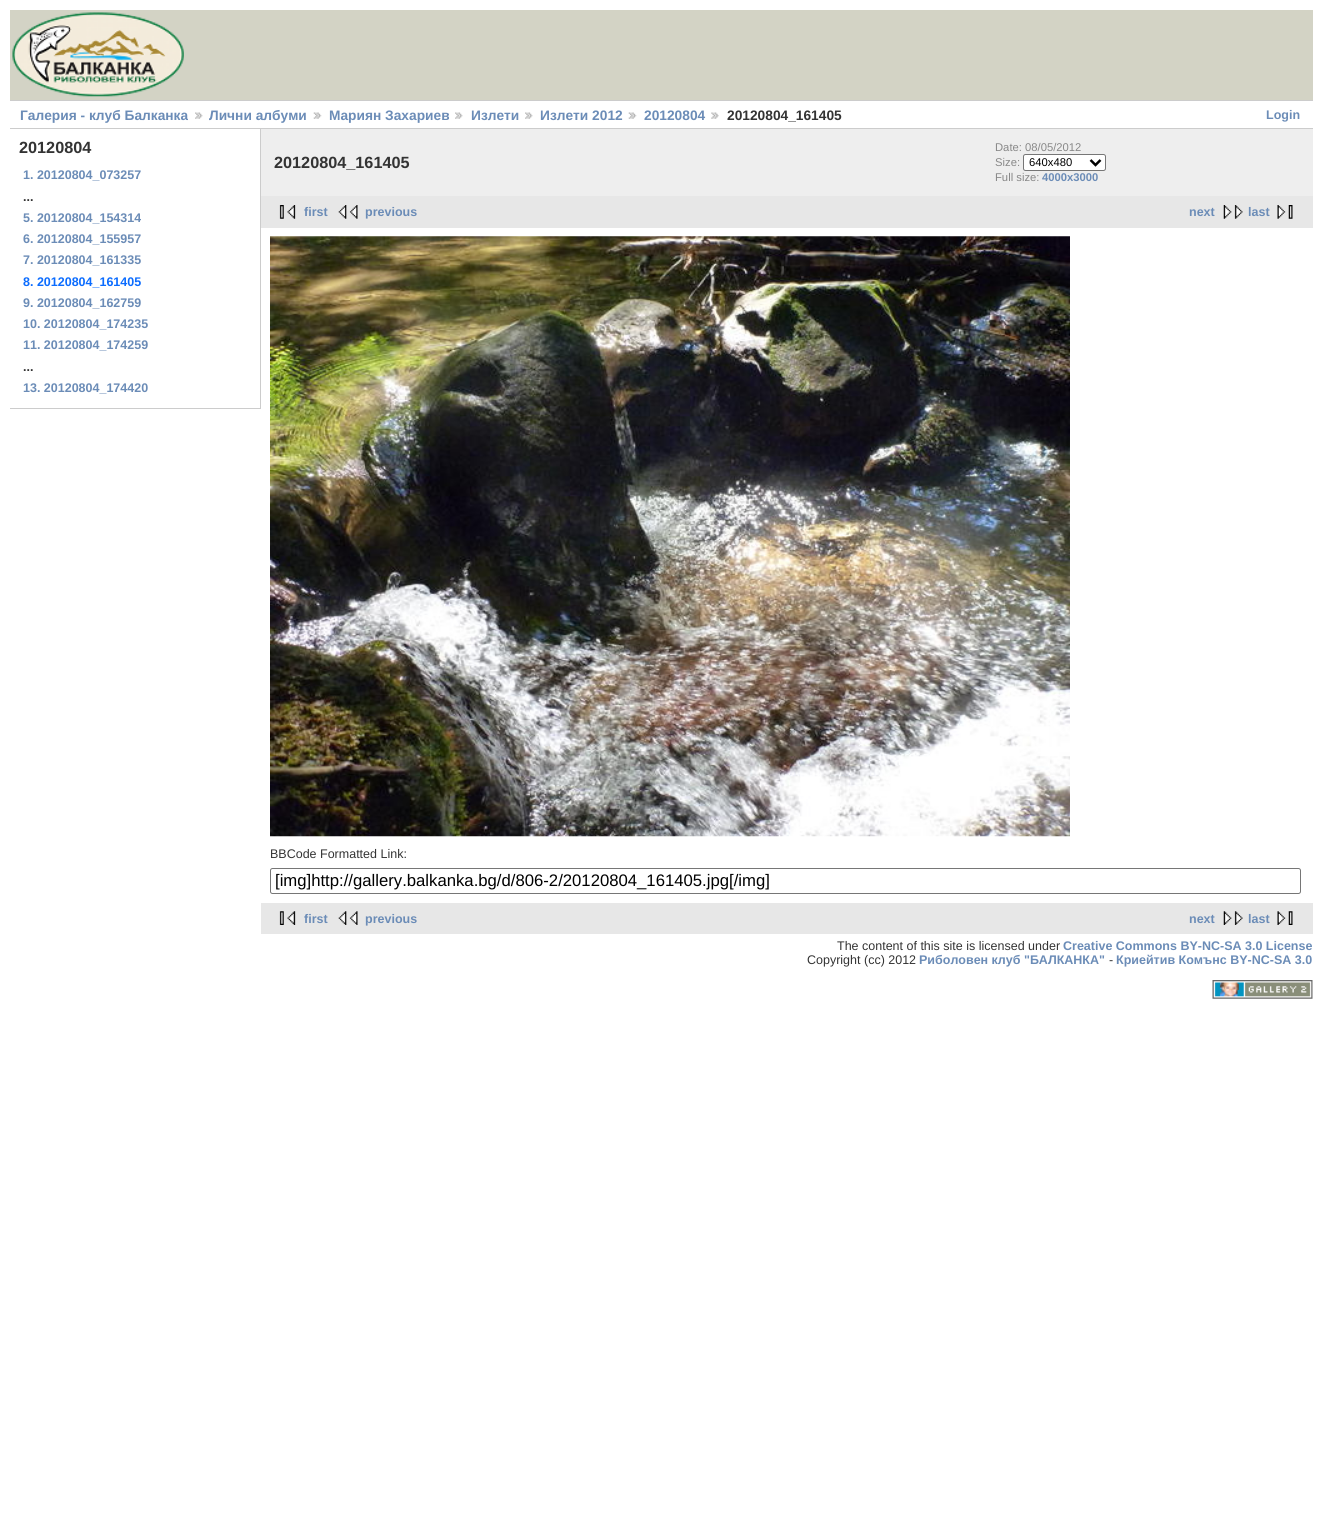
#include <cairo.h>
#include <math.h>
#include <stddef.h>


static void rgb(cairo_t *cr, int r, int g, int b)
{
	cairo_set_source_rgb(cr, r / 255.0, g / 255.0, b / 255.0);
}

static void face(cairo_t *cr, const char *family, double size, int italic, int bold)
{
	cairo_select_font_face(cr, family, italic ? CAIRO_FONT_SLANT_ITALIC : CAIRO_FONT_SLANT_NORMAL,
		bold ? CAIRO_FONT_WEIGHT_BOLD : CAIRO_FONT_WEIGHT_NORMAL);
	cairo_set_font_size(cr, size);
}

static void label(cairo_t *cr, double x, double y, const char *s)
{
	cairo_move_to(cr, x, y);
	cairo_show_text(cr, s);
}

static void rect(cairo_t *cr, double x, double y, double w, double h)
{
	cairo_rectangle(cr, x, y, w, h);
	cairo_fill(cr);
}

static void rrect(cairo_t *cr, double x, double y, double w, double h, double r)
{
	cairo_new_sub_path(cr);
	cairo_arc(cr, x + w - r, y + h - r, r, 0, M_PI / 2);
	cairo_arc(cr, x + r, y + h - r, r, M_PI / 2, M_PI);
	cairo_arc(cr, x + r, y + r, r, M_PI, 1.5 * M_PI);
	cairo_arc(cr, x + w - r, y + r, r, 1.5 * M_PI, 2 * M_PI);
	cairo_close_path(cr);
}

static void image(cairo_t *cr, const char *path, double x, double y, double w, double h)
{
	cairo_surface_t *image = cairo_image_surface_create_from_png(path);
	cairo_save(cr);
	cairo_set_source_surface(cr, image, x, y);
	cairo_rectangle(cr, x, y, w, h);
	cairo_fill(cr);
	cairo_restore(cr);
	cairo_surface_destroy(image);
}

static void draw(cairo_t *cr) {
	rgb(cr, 255, 255, 255);
	cairo_paint(cr);
	rgb(cr, 211, 211, 197);
	rect(cr, 10, 10, 1303, 90);
	image(cr, "image0.png", 12, 12, 172, 85);
	rgb(cr, 204, 204, 204);
	rect(cr, 10, 100, 1303, 1);
	rect(cr, 10, 128, 1303, 1);
	face(cr, "Liberation Sans", 13.75, 0, 1);
	rgb(cr, 107, 140, 183);
	label(cr, 20, 120, "Галерия - клуб Балканка");
	image(cr, "image1.png", 195, 112, 8, 7);
	label(cr, 209, 120, "Лични албуми");
	image(cr, "image2.png", 313, 112, 9, 7);
	label(cr, 329, 120, "Мариян Захариев");
	image(cr, "image1.png", 455, 112, 8, 7);
	label(cr, 471, 120, "Излети");
	image(cr, "image1.png", 525, 112, 8, 7);
	label(cr, 540, 120, "Излети 2012");
	image(cr, "image2.png", 628, 112, 9, 7);
	label(cr, 644, 120, "20120804");
	image(cr, "image3.png", 711, 112, 8, 7);
	rgb(cr, 51, 51, 51);
	label(cr, 727, 120, "20120804_161405");
	face(cr, "Liberation Sans", 12.5, 0, 1);
	rgb(cr, 107, 140, 183);
	label(cr, 1266, 119, "Login");
	rgb(cr, 204, 204, 204);
	rect(cr, 260, 129, 1, 280);
	rect(cr, 10, 408, 250, 1);
	face(cr, "Liberation Sans", 16.25, 0, 1);
	rgb(cr, 51, 51, 51);
	label(cr, 19, 153, "20120804");
	face(cr, "Liberation Sans", 12.5, 0, 1);
	rgb(cr, 107, 140, 183);
	label(cr, 23, 179, "1. 20120804_073257");
	rgb(cr, 51, 51, 51);
	label(cr, 23, 201, "...");
	rgb(cr, 107, 140, 183);
	label(cr, 23, 222, "5. 20120804_154314");
	label(cr, 23, 243, "6. 20120804_155957");
	label(cr, 23, 264, "7. 20120804_161335");
	rgb(cr, 11, 108, 255);
	label(cr, 23, 286, "8. 20120804_161405");
	rgb(cr, 107, 140, 183);
	label(cr, 23, 307, "9. 20120804_162759");
	label(cr, 23, 328, "10. 20120804_174235");
	label(cr, 23, 349, "11. 20120804_174259");
	rgb(cr, 51, 51, 51);
	label(cr, 23, 371, "...");
	rgb(cr, 107, 140, 183);
	label(cr, 23, 392, "13. 20120804_174420");
	rgb(cr, 238, 238, 238);
	rect(cr, 261, 129, 1052, 67);
	face(cr, "Liberation Sans", 16.25, 0, 1);
	rgb(cr, 51, 51, 51);
	label(cr, 274, 168, "20120804_161405");
	face(cr, "Liberation Sans", 11.25, 0, 0);
	rgb(cr, 136, 136, 136);
	label(cr, 995, 151, "Date: 08/05/2012");
	label(cr, 995, 166, "Size:");
	rgb(cr, 255, 255, 255);
	rrect(cr, 1023.5, 154.5, 82, 16, 2);
	cairo_fill_preserve(cr);
	rgb(cr, 118, 118, 118);
	cairo_set_line_width(cr, 1);
	cairo_stroke(cr);
	cairo_new_path(cr);
	cairo_move_to(cr, 1090.5, 160);
	cairo_line_to(cr, 1095.5, 165);
	cairo_line_to(cr, 1100.5, 160);
	rgb(cr, 0, 0, 0);
	cairo_set_line_width(cr, 2.5);
	cairo_stroke(cr);
	label(cr, 1029, 166, "640x480");
	rgb(cr, 136, 136, 136);
	label(cr, 995, 181, "Full size:");
	face(cr, "Liberation Sans", 11.25, 0, 1);
	rgb(cr, 107, 140, 183);
	label(cr, 1042, 181, "4000x3000");
	rgb(cr, 231, 231, 231);
	rect(cr, 261, 196, 1052, 32);
	image(cr, "image4.png", 279, 205, 17, 14);
	face(cr, "Liberation Sans", 12.5, 0, 1);
	rgb(cr, 107, 140, 183);
	label(cr, 304, 216, "first");
	image(cr, "image5.png", 338, 205, 20, 14);
	label(cr, 365, 216, "previous");
	label(cr, 1189, 216, "next");
	image(cr, "image6.png", 1223, 205, 20, 14);
	label(cr, 1248, 216, "last");
	image(cr, "image7.png", 1277, 205, 16, 14);
	image(cr, "image8.png", 270, 236, 800, 601);
	face(cr, "Liberation Sans", 12.5, 0, 0);
	rgb(cr, 51, 51, 51);
	label(cr, 270, 858, "BBCode Formatted Link:");
	rrect(cr, 270.5, 868.5, 1030, 25, 2);
	rgb(cr, 118, 118, 118);
	cairo_set_line_width(cr, 1);
	cairo_stroke(cr);
	face(cr, "Liberation Sans", 16.7, 0, 0);
	rgb(cr, 0, 0, 0);
	label(cr, 275, 886, "[img]http://gallery.balkanka.bg/d/806-2/20120804_161405.jpg[/img]");
	rgb(cr, 231, 231, 231);
	rect(cr, 261, 903, 1052, 31);
	image(cr, "image9.png", 279, 911, 17, 14);
	face(cr, "Liberation Sans", 12.5, 0, 1);
	rgb(cr, 107, 140, 183);
	label(cr, 304, 923, "first");
	image(cr, "image10.png", 338, 911, 20, 14);
	label(cr, 365, 923, "previous");
	label(cr, 1189, 923, "next");
	image(cr, "image11.png", 1223, 911, 20, 14);
	label(cr, 1248, 923, "last");
	image(cr, "image12.png", 1277, 911, 16, 14);
	face(cr, "Liberation Sans", 12.5, 0, 0);
	rgb(cr, 51, 51, 51);
	label(cr, 837, 950, "The content of this site is licensed under");
	face(cr, "Liberation Sans", 12.5, 0, 1);
	rgb(cr, 107, 140, 183);
	label(cr, 1063, 950, "Creative Commons BY-NC-SA 3.0 License");
	face(cr, "Liberation Sans", 12.5, 0, 0);
	rgb(cr, 51, 51, 51);
	label(cr, 807, 964, "Copyright (cc) 2012");
	face(cr, "Liberation Sans", 12.5, 0, 1);
	rgb(cr, 107, 140, 183);
	label(cr, 919, 964, "Риболовен клуб \"БАЛКАНКА\"");
	face(cr, "Liberation Sans", 12.5, 0, 0);
	rgb(cr, 51, 51, 51);
	label(cr, 1109, 964, "-");
	face(cr, "Liberation Sans", 12.5, 0, 1);
	rgb(cr, 107, 140, 183);
	label(cr, 1116, 964, "Криейтив Комънс BY-NC-SA 3.0");
	image(cr, "image13.png", 1212, 980, 101, 19);
}

int main(void) {
	cairo_surface_t *surface = cairo_image_surface_create(CAIRO_FORMAT_RGB24, 1322, 1520);
	cairo_t *cr = cairo_create(surface);
	cairo_font_options_t *options = cairo_font_options_create();
	cairo_font_options_set_hint_metrics(options, CAIRO_HINT_METRICS_OFF);
	cairo_font_options_set_hint_style(options, CAIRO_HINT_STYLE_NONE);
	cairo_set_font_options(cr, options);
	cairo_set_miter_limit(cr, 4);
	draw(cr);
	cairo_surface_write_to_png(surface, "render.png");
	cairo_font_options_destroy(options);
	cairo_destroy(cr);
	cairo_surface_destroy(surface);
	return 0;
}
